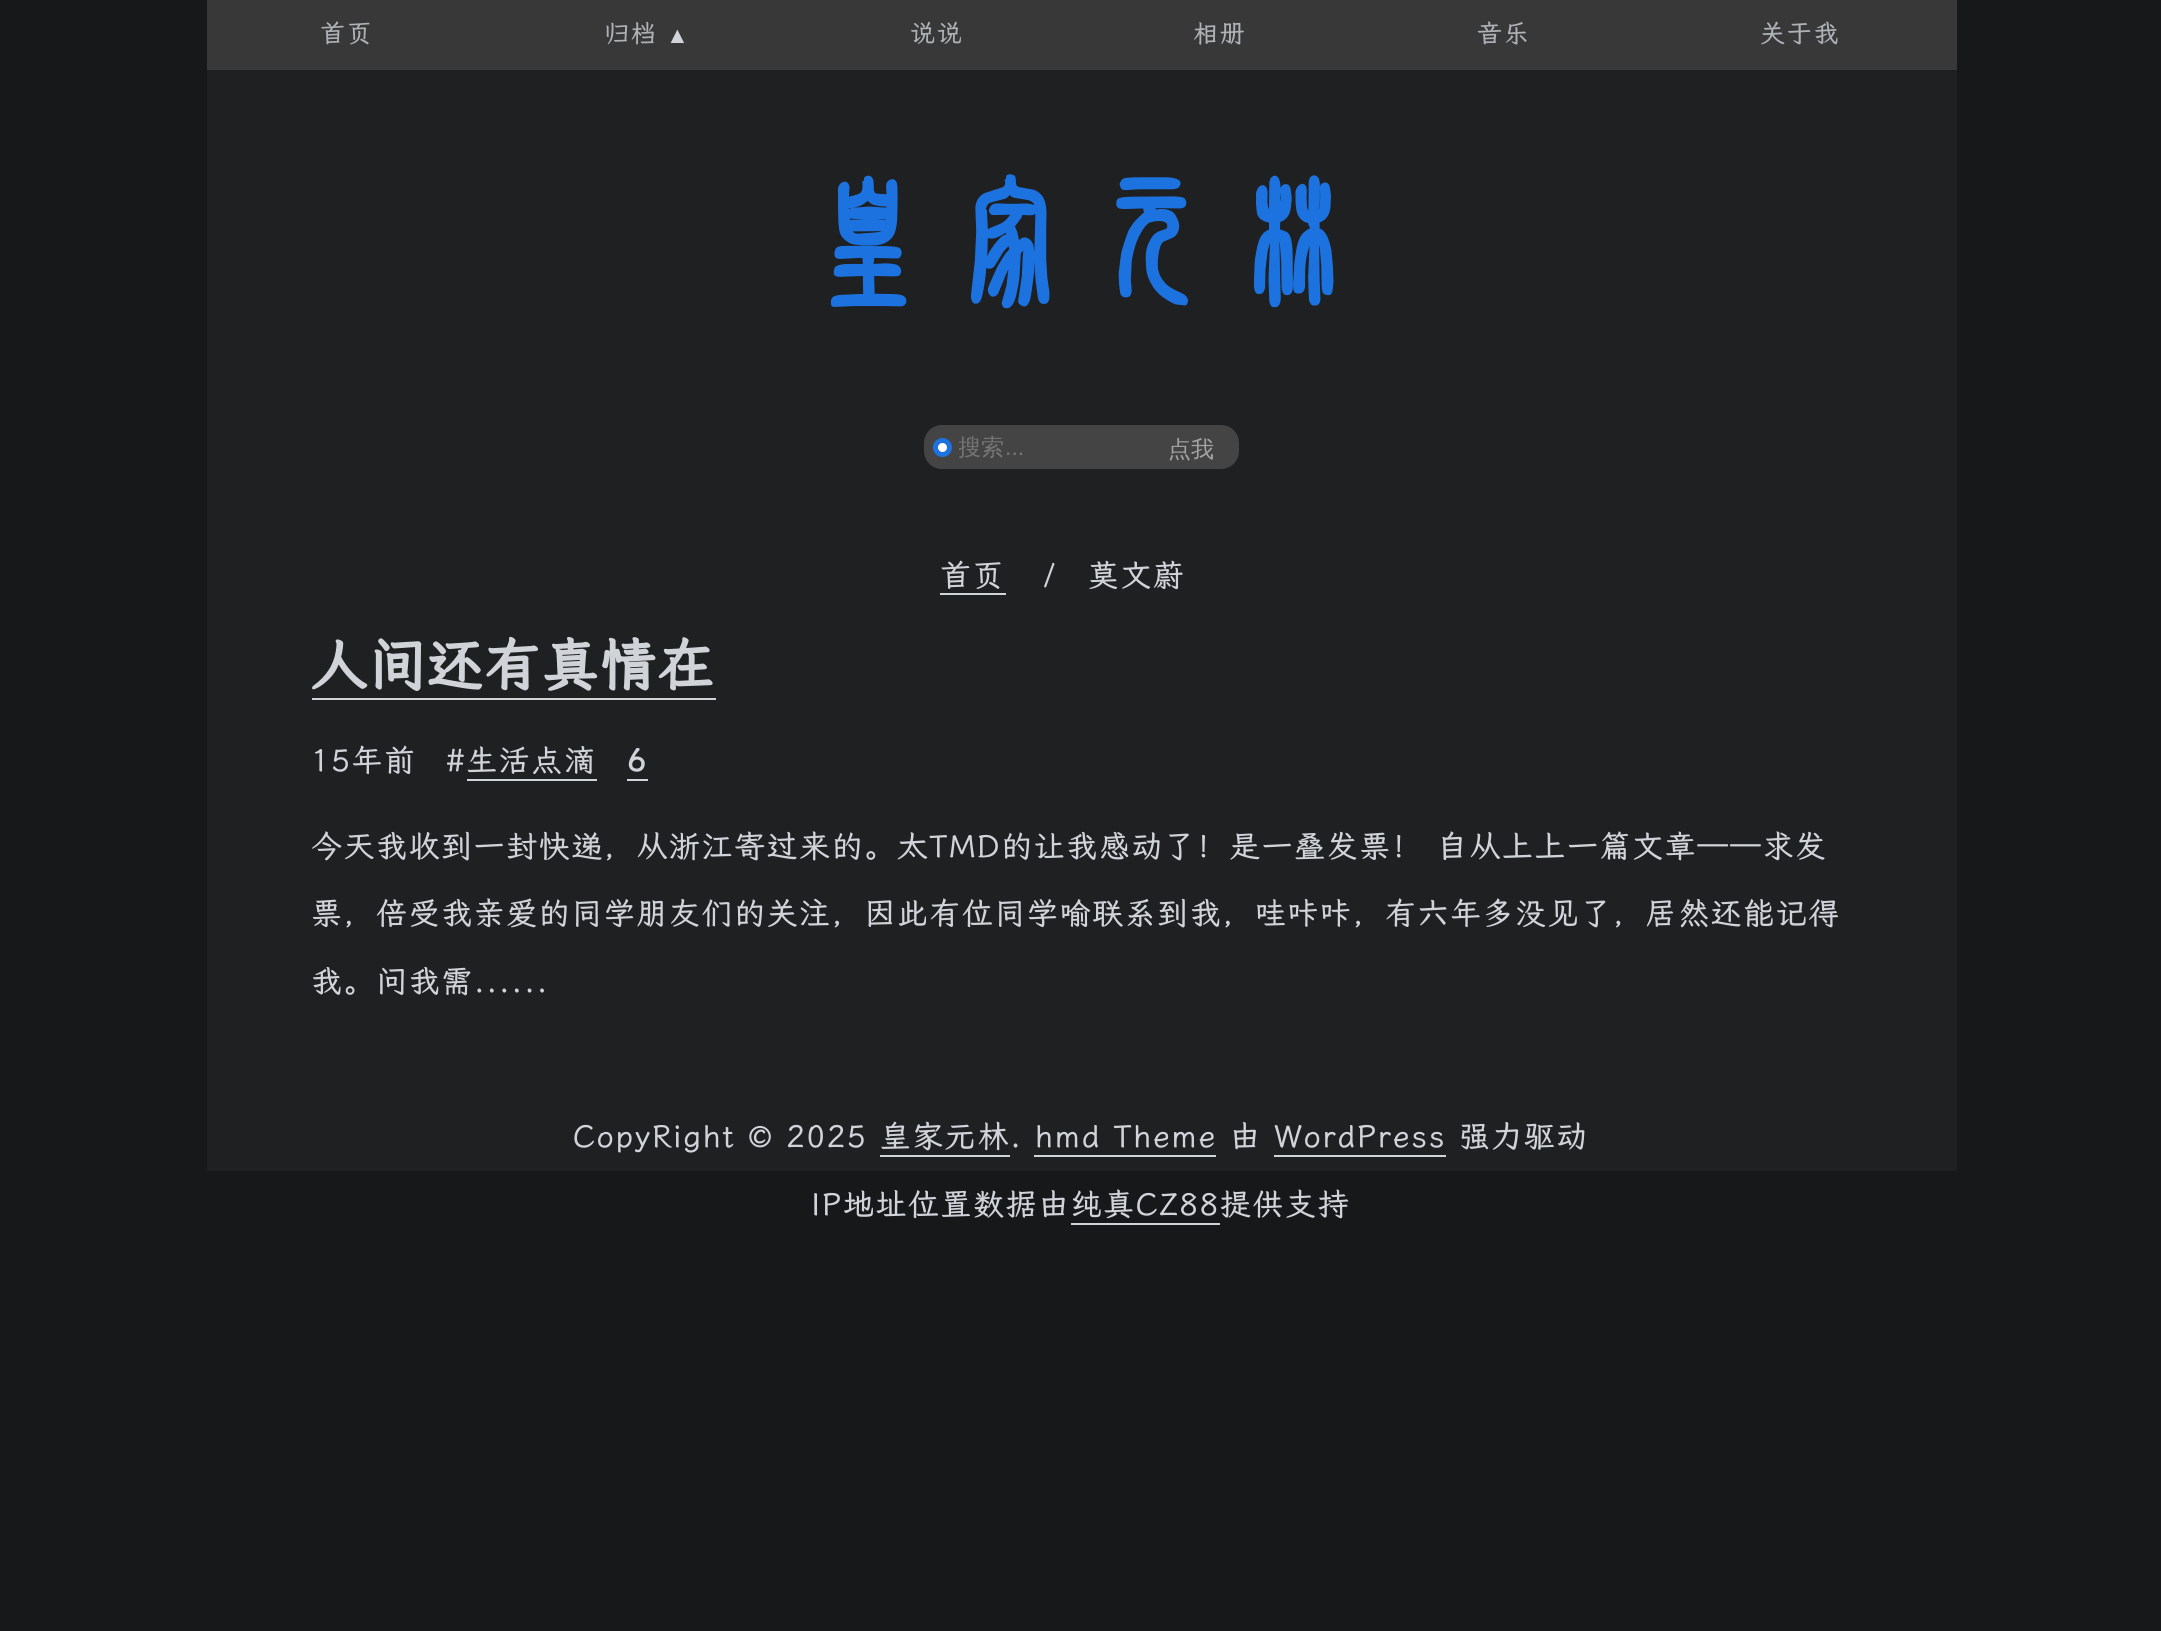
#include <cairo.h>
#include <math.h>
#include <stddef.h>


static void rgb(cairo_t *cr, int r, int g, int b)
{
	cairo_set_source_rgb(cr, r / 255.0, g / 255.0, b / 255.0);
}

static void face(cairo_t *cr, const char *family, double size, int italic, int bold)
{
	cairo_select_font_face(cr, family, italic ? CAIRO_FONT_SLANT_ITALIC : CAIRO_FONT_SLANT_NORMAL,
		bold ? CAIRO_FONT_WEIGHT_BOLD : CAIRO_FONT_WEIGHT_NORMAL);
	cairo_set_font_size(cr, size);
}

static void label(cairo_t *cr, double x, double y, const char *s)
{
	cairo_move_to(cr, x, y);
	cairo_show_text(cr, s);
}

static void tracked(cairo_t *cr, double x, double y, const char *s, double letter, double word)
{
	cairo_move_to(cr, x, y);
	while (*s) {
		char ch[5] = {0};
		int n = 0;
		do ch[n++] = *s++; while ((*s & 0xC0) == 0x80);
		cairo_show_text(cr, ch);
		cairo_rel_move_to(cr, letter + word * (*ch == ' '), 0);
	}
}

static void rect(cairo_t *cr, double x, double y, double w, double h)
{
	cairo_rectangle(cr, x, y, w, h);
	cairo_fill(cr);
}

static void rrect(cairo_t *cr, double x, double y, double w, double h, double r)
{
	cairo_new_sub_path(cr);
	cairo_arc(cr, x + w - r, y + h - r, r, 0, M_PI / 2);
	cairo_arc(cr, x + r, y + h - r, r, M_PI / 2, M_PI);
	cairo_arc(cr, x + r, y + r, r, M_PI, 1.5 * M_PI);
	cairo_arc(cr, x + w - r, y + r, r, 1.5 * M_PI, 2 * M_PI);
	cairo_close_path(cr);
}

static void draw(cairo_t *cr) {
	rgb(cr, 23, 24, 26);
	cairo_paint(cr);
	rgb(cr, 31, 32, 34);
	rect(cr, 207, 70, 1750, 1101);
	rgb(cr, 56, 56, 56);
	rect(cr, 207, 0, 1750, 70);
	face(cr, "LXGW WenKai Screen", 25, 0, 0);
	rgb(cr, 174, 177, 181);
	tracked(cr, 320, 42, "首页", 1.75, 0);
	tracked(cr, 604, 42, "归档", 1.75, 0);
	face(cr, "Liberation Sans", 23, 1, 0);
	rgb(cr, 208, 211, 216);
	label(cr, 666, 43, "▲");
	face(cr, "LXGW WenKai Screen", 25, 0, 0);
	rgb(cr, 174, 177, 181);
	tracked(cr, 910, 42, "说说", 1.75, 0);
	tracked(cr, 1193, 42, "相册", 1.75, 0);
	tracked(cr, 1477, 42, "音乐", 1.75, 0);
	tracked(cr, 1760, 42, "关于我", 1.75, 0);
	face(cr, "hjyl", 140, 0, 1);
	rgb(cr, 28, 115, 224);
	tracked(cr, 797, 285, "皇家元林", 1.75, 0);
	rgb(cr, 68, 68, 68);
	rrect(cr, 924, 425, 315, 44, 18);
	cairo_fill(cr);
	rgb(cr, 255, 255, 255);
	cairo_arc(cr, 942.5, 447.5, 7, 0, 2 * M_PI);
	cairo_fill_preserve(cr);
	rgb(cr, 28, 115, 224);
	cairo_set_line_width(cr, 5);
	cairo_stroke(cr);
	cairo_save(cr);
	cairo_rectangle(cr, 959, 432, 257, 32);
	cairo_clip(cr);
	face(cr, "WenQuanYi Zen Hei Medium", 23, 0, 0);
	rgb(cr, 117, 117, 117);
	label(cr, 958, 455, "搜索");
	cairo_restore(cr);
	face(cr, "Liberation Sans", 23, 0, 0);
	rgb(cr, 117, 117, 117);
	label(cr, 1005, 455, "...");
	face(cr, "WenQuanYi Zen Hei Medium", 23, 0, 0);
	rgb(cr, 164, 164, 164);
	label(cr, 1168, 457, "点我");
	face(cr, "LXGW WenKai Screen", 30.8, 0, 0);
	rgb(cr, 208, 211, 216);
	tracked(cr, 940, 586, "首页", 1.75, 0);
	rect(cr, 940, 593, 66, 2);
	tracked(cr, 1044, 586, "/", 1.75, 0);
	tracked(cr, 1088, 586, "莫文蔚", 1.75, 0);
	face(cr, "LXGW WenKai Screen", 56, 0, 1);
	tracked(cr, 311, 685, "人间还有真情在", 1.75, 0);
	rect(cr, 312, 698, 404, 2);
	face(cr, "LXGW WenKai Screen", 30.8, 0, 0);
	tracked(cr, 311, 771, "15年前", 1.75, 0);
	tracked(cr, 446, 771, "#生活点滴", 1.75, 0);
	rect(cr, 467, 779, 130, 2);
	face(cr, "LXGW WenKai Screen", 30.8, 0, 1);
	tracked(cr, 627, 771, "6", 1.75, 0);
	rect(cr, 627, 779, 21, 2);
	face(cr, "LXGW WenKai Screen", 30.8, 0, 0);
	tracked(cr, 311, 857, "今天我收到一封快递，从浙江寄过来的。太TMD的让我感动了！是一叠发票！ 自从上上一篇文章——求发", 1.75, 0);
	tracked(cr, 311, 924, "票，倍受我亲爱的同学朋友们的关注，因此有位同学喻联系到我，哇咔咔，有六年多没见了，居然还能记得", 1.75, 0);
	tracked(cr, 311, 992, "我。问我需......", 1.75, 0);
	tracked(cr, 573, 1147, "CopyRight © 2025 皇家元林. hmd Theme 由 WordPress 强力驱动", 1.75, 0);
	rect(cr, 880, 1155, 130, 2);
	rect(cr, 1034, 1155, 182, 2);
	rect(cr, 1274, 1155, 172, 2);
	tracked(cr, 811, 1215, "IP地址位置数据由纯真CZ88提供支持", 1.75, 0);
	rect(cr, 1071, 1223, 149, 2);
}

int main(void) {
	cairo_surface_t *surface = cairo_image_surface_create(CAIRO_FORMAT_RGB24, 2161, 1631);
	cairo_t *cr = cairo_create(surface);
	cairo_font_options_t *options = cairo_font_options_create();
	cairo_font_options_set_hint_metrics(options, CAIRO_HINT_METRICS_OFF);
	cairo_font_options_set_hint_style(options, CAIRO_HINT_STYLE_NONE);
	cairo_set_font_options(cr, options);
	cairo_set_miter_limit(cr, 4);
	draw(cr);
	cairo_surface_write_to_png(surface, "render.png");
	cairo_font_options_destroy(options);
	cairo_destroy(cr);
	cairo_surface_destroy(surface);
	return 0;
}
